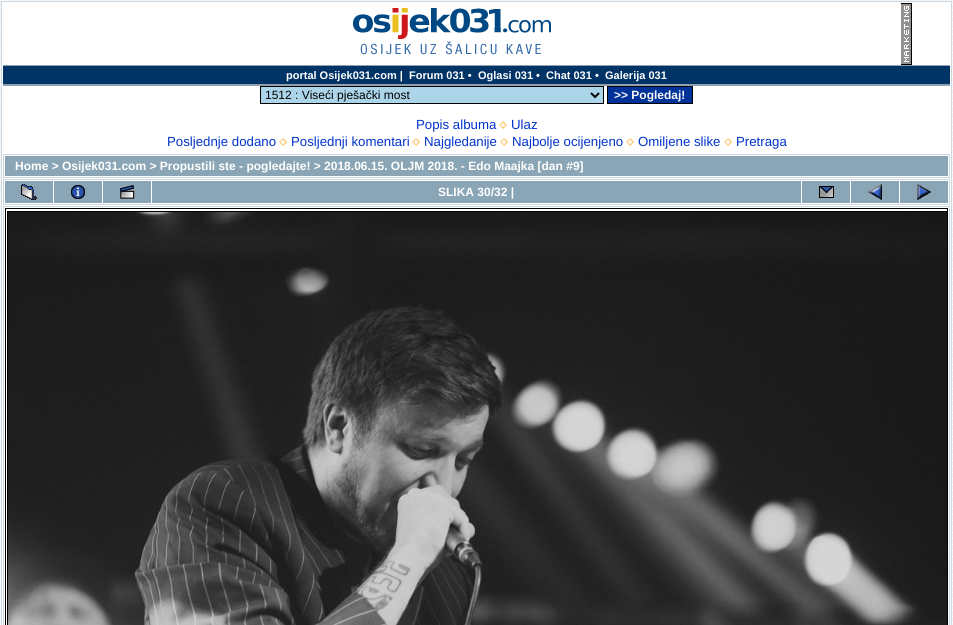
#include <cairo.h>
#include <math.h>
#include <stddef.h>


static void rgb(cairo_t *cr, int r, int g, int b)
{
	cairo_set_source_rgb(cr, r / 255.0, g / 255.0, b / 255.0);
}

static void face(cairo_t *cr, const char *family, double size, int italic, int bold)
{
	cairo_select_font_face(cr, family, italic ? CAIRO_FONT_SLANT_ITALIC : CAIRO_FONT_SLANT_NORMAL,
		bold ? CAIRO_FONT_WEIGHT_BOLD : CAIRO_FONT_WEIGHT_NORMAL);
	cairo_set_font_size(cr, size);
}

static void label(cairo_t *cr, double x, double y, const char *s)
{
	cairo_move_to(cr, x, y);
	cairo_show_text(cr, s);
}

static void rect(cairo_t *cr, double x, double y, double w, double h)
{
	cairo_rectangle(cr, x, y, w, h);
	cairo_fill(cr);
}

static void image(cairo_t *cr, const char *path, double x, double y, double w, double h)
{
	cairo_surface_t *image = cairo_image_surface_create_from_png(path);
	cairo_save(cr);
	cairo_set_source_surface(cr, image, x, y);
	cairo_rectangle(cr, x, y, w, h);
	cairo_fill(cr);
	cairo_restore(cr);
	cairo_surface_destroy(image);
}

static void draw(cairo_t *cr) {
	rgb(cr, 242, 245, 247);
	cairo_paint(cr);
	image(cr, "image0.png", 0, 0, 953, 625);
	rgb(cr, 255, 255, 255);
	cairo_rectangle(cr, 1.5, 1.5, 950, 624);
	cairo_fill_preserve(cr);
	rgb(cr, 204, 215, 224);
	cairo_set_line_width(cr, 1);
	cairo_stroke(cr);
	image(cr, "image1.png", 353, 8, 198, 47);
	rgb(cr, 0, 0, 0);
	rect(cr, 901, 3, 11, 1);
	image(cr, "image2.png", 901, 4, 10, 60);
	rect(cr, 911, 3, 1, 62);
	rect(cr, 901, 64, 11, 1);
	rgb(cr, 0, 51, 102);
	rect(cr, 3, 66, 947, 18);
	rgb(cr, 145, 160, 174);
	rect(cr, 3, 65, 947, 1);
	rect(cr, 3, 84, 947, 2);
	face(cr, "Liberation Sans", 11, 0, 1);
	rgb(cr, 255, 255, 254);
	label(cr, 286, 79, "portal Osijek031.com |");
	label(cr, 409, 79, "Forum 031 •");
	label(cr, 478, 79, "Oglasi 031 •");
	label(cr, 546, 79, "Chat 031 •");
	label(cr, 605, 79, "Galerija 031");
	rgb(cr, 172, 213, 234);
	cairo_rectangle(cr, 260.5, 86.5, 343, 17);
	cairo_fill_preserve(cr);
	rgb(cr, 0, 0, 0);
	cairo_stroke(cr);
	cairo_new_path(cr);
	cairo_move_to(cr, 591, 93);
	cairo_line_to(cr, 595, 97);
	cairo_line_to(cr, 599, 93);
	cairo_set_line_width(cr, 2);
	cairo_stroke(cr);
	face(cr, "Liberation Sans", 12, 0, 0);
	label(cr, 265, 99, "1512 : Viseći pješački most");
	rgb(cr, 0, 51, 153);
	cairo_rectangle(cr, 607.5, 86.5, 85, 17);
	cairo_fill_preserve(cr);
	rgb(cr, 0, 0, 0);
	cairo_set_line_width(cr, 1);
	cairo_stroke(cr);
	face(cr, "Liberation Sans", 12, 0, 1);
	rgb(cr, 246, 246, 246);
	label(cr, 614, 99, ">> Pogledaj!");
	face(cr, "Liberation Sans", 13.25, 0, 0);
	rgb(cr, 0, 51, 204);
	label(cr, 416, 129, "Popis albuma");
	image(cr, "image3.png", 499, 121, 8, 8);
	label(cr, 511, 129, "Ulaz");
	label(cr, 167, 146, "Posljednje dodano");
	image(cr, "image3.png", 279, 138, 8, 8);
	label(cr, 291, 146, "Posljednji komentari");
	image(cr, "image3.png", 412, 138, 8, 8);
	label(cr, 424, 146, "Najgledanije");
	image(cr, "image3.png", 500, 138, 8, 8);
	label(cr, 512, 146, "Najbolje ocijenjeno");
	image(cr, "image3.png", 626, 138, 8, 8);
	label(cr, 638, 146, "Omiljene slike");
	image(cr, "image3.png", 724, 138, 8, 8);
	label(cr, 736, 146, "Pretraga");
	cairo_rectangle(cr, 3.5, 154.5, 946, 23);
	rgb(cr, 204, 215, 224);
	cairo_stroke(cr);
	rgb(cr, 138, 165, 181);
	rect(cr, 5, 156, 943, 20);
	face(cr, "Liberation Sans", 12, 0, 1);
	rgb(cr, 255, 255, 254);
	label(cr, 15, 170, "Home > Osijek031.com > Propustili ste - pogledajte! > 2018.06.15. OLJM 2018. - Edo Maajka [dan #9]");
	cairo_rectangle(cr, 3.5, 179.5, 946, 25);
	rgb(cr, 204, 215, 224);
	cairo_stroke(cr);
	rgb(cr, 138, 165, 181);
	rect(cr, 5, 181, 48, 22);
	image(cr, "image4.png", 21, 184, 16, 16);
	rect(cr, 54, 181, 48, 22);
	image(cr, "image5.png", 71, 185, 14, 14);
	rect(cr, 103, 181, 48, 22);
	image(cr, "image6.png", 120, 185, 15, 14);
	rect(cr, 152, 181, 649, 22);
	rgb(cr, 255, 255, 254);
	label(cr, 438, 196, "SLIKA 30/32 |");
	rgb(cr, 138, 165, 181);
	rect(cr, 802, 181, 48, 22);
	image(cr, "image7.png", 819, 186, 15, 12);
	rect(cr, 851, 181, 48, 22);
	image(cr, "image8.png", 868, 184, 14, 16);
	rect(cr, 900, 181, 48, 22);
	image(cr, "image9.png", 917, 184, 14, 16);
	cairo_rectangle(cr, 3.5, 206.5, 946, 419);
	rgb(cr, 204, 215, 224);
	cairo_stroke(cr);
	cairo_rectangle(cr, 5.5, 208.5, 942, 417);
	rgb(cr, 0, 0, 0);
	cairo_stroke(cr);
	cairo_rectangle(cr, 7.5, 211.5, 940, 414);
	cairo_stroke(cr);
	image(cr, "image10.png", 8, 212, 939, 413);
}

int main(void) {
	cairo_surface_t *surface = cairo_image_surface_create(CAIRO_FORMAT_RGB24, 953, 625);
	cairo_t *cr = cairo_create(surface);
	cairo_font_options_t *options = cairo_font_options_create();
	cairo_font_options_set_hint_metrics(options, CAIRO_HINT_METRICS_OFF);
	cairo_font_options_set_hint_style(options, CAIRO_HINT_STYLE_NONE);
	cairo_set_font_options(cr, options);
	cairo_set_miter_limit(cr, 4);
	draw(cr);
	cairo_surface_write_to_png(surface, "render.png");
	cairo_font_options_destroy(options);
	cairo_destroy(cr);
	cairo_surface_destroy(surface);
	return 0;
}
